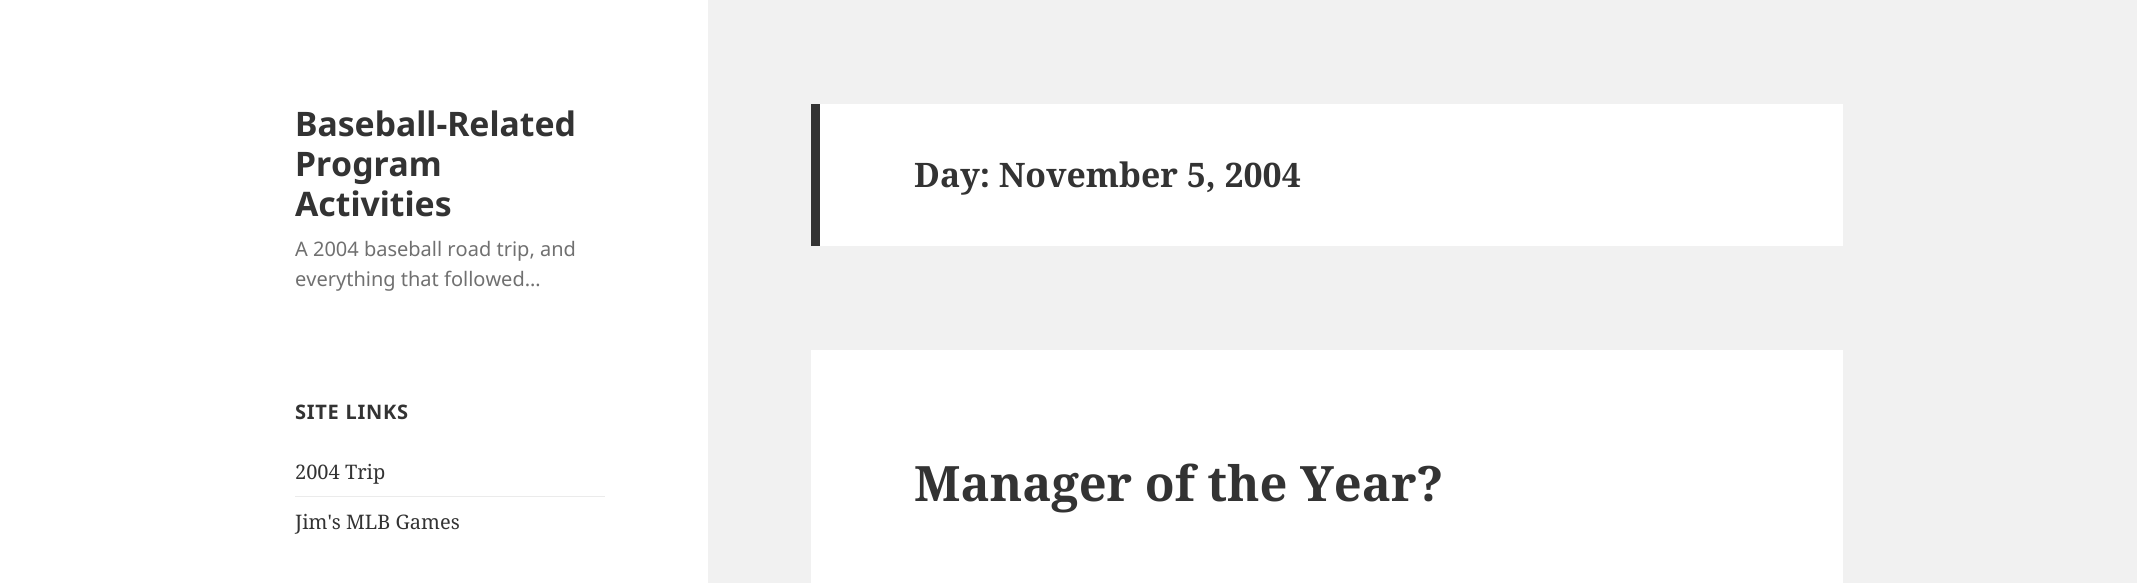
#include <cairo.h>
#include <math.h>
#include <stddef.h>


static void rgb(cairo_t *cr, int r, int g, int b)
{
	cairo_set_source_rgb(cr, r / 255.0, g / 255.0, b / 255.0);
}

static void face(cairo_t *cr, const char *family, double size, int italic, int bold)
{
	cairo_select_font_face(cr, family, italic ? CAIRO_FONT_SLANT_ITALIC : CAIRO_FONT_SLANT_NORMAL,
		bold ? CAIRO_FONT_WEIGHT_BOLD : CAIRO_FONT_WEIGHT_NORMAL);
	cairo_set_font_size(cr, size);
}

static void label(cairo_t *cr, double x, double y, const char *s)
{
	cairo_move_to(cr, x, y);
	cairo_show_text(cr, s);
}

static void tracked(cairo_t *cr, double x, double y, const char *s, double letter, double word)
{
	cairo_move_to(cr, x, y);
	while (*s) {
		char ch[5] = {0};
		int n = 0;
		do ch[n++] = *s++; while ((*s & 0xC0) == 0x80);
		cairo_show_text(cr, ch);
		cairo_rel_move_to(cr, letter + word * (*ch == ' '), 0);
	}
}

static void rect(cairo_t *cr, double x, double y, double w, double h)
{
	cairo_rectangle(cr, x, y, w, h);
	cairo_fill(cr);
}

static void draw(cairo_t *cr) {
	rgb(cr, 241, 241, 241);
	cairo_paint(cr);
	rgb(cr, 255, 255, 255);
	rect(cr, 0, 0, 708, 583);
	face(cr, "Noto Sans", 33.75, 0, 1);
	rgb(cr, 51, 51, 51);
	label(cr, 295, 136, "Baseball-Related");
	label(cr, 295, 176, "Program");
	label(cr, 295, 216, "Activities");
	face(cr, "Noto Sans", 20, 0, 0);
	rgb(cr, 112, 112, 112);
	label(cr, 295, 256, "A 2004 baseball road trip, and");
	label(cr, 295, 286, "everything that followed…");
	face(cr, "Noto Sans", 20, 0, 1);
	rgb(cr, 51, 51, 51);
	tracked(cr, 295, 419, "SITE LINKS", 0.75, 0);
	face(cr, "Noto Serif", 20, 0, 0);
	label(cr, 295, 479, "2004 Trip");
	rgb(cr, 235, 235, 235);
	rect(cr, 295, 496, 310, 1);
	rgb(cr, 51, 51, 51);
	label(cr, 295, 529, "Jim's MLB Games");
	rgb(cr, 255, 255, 255);
	rect(cr, 820, 104, 1023, 142);
	rgb(cr, 51, 51, 51);
	rect(cr, 811, 104, 9, 142);
	face(cr, "Noto Serif", 33.75, 0, 1);
	label(cr, 914, 187, "Day: November 5, 2004");
	rgb(cr, 255, 255, 255);
	rect(cr, 811, 350, 1032, 233);
	face(cr, "Noto Serif", 48.75, 0, 1);
	rgb(cr, 51, 51, 51);
	label(cr, 914, 501, "Manager of the Year?");
}

int main(void) {
	cairo_surface_t *surface = cairo_image_surface_create(CAIRO_FORMAT_RGB24, 2137, 583);
	cairo_t *cr = cairo_create(surface);
	cairo_font_options_t *options = cairo_font_options_create();
	cairo_font_options_set_hint_metrics(options, CAIRO_HINT_METRICS_OFF);
	cairo_font_options_set_hint_style(options, CAIRO_HINT_STYLE_NONE);
	cairo_set_font_options(cr, options);
	cairo_set_miter_limit(cr, 4);
	draw(cr);
	cairo_surface_write_to_png(surface, "render.png");
	cairo_font_options_destroy(options);
	cairo_destroy(cr);
	cairo_surface_destroy(surface);
	return 0;
}
